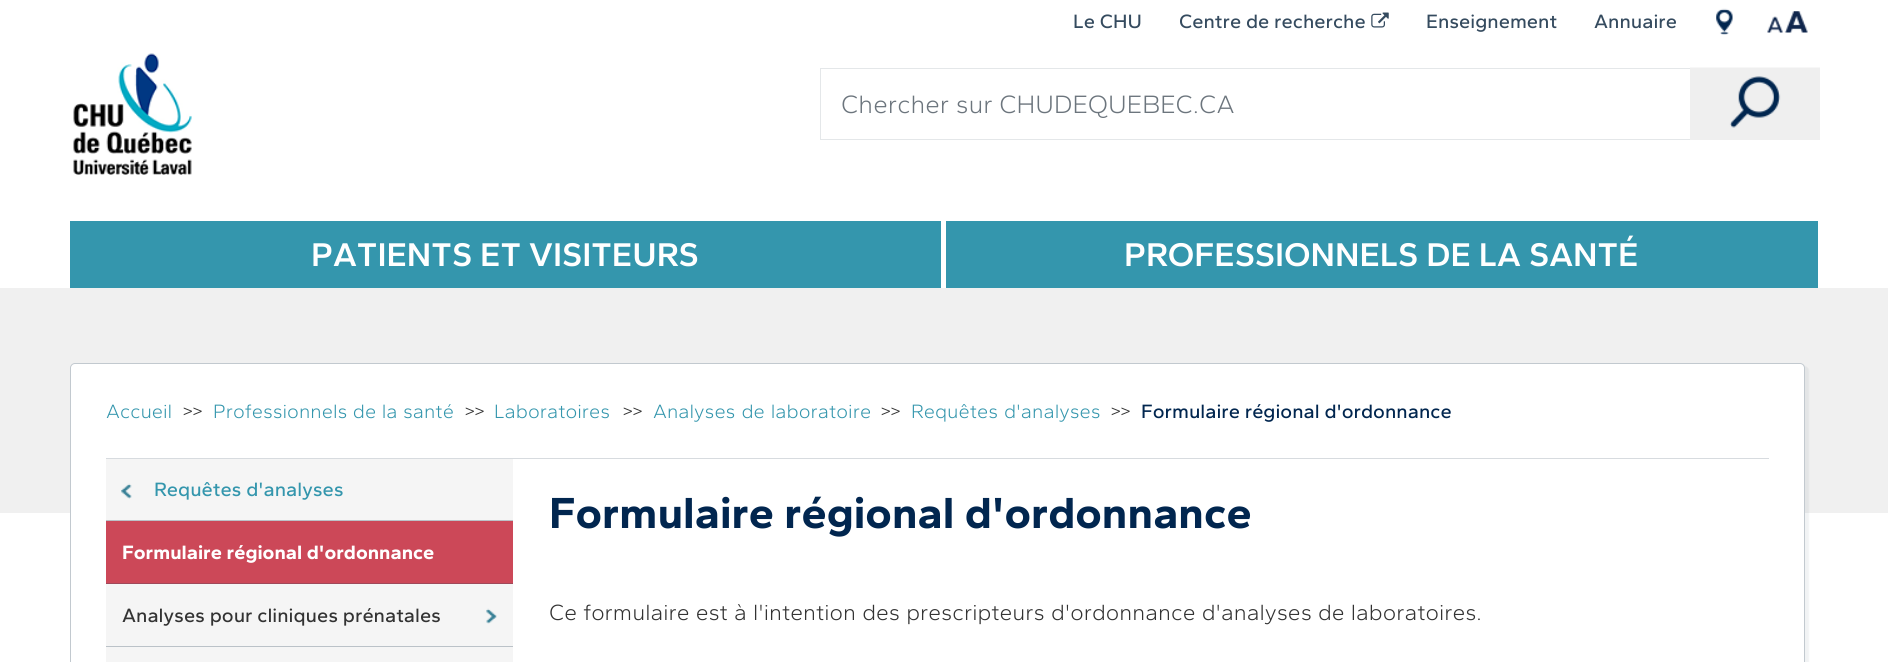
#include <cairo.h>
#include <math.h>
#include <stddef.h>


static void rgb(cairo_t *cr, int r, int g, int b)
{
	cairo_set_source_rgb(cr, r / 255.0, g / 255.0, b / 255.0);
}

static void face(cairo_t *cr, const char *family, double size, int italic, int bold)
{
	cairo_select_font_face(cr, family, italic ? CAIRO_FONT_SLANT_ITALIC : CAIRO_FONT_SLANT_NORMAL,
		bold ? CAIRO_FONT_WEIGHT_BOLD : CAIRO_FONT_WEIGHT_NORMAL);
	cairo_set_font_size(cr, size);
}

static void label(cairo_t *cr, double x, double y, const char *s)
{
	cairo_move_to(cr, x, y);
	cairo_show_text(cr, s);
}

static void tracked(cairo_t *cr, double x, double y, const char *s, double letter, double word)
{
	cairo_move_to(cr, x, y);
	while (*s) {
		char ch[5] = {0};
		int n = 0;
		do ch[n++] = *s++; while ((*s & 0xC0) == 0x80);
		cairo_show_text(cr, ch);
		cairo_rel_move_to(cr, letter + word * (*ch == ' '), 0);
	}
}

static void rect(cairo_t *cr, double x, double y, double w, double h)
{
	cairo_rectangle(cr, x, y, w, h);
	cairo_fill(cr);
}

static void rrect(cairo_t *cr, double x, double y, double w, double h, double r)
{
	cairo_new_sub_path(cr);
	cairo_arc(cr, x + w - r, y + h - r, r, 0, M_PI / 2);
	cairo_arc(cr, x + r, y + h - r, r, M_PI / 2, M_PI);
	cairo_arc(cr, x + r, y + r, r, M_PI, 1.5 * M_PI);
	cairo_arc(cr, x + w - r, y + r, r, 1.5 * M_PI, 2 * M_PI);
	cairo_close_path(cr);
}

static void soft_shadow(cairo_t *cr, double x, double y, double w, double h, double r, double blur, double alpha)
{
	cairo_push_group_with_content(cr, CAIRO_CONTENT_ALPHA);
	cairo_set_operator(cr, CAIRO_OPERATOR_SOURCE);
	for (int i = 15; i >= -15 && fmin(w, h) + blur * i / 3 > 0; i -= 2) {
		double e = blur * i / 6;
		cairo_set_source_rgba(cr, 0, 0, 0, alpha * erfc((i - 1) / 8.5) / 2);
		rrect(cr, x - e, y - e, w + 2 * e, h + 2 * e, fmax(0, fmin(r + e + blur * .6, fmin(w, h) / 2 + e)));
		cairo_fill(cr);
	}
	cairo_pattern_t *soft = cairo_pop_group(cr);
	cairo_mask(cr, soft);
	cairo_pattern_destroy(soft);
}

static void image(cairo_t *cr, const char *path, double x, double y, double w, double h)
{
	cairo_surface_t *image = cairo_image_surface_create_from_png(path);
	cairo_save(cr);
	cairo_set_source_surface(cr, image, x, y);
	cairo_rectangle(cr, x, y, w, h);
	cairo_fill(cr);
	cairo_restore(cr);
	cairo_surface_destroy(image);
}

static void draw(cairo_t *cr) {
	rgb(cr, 255, 255, 255);
	cairo_paint(cr);
	face(cr, "Gantari Medium", 20, 0, 0);
	rgb(cr, 53, 75, 95);
	label(cr, 1073, 28, "Le CHU");
	label(cr, 1179, 28, "Centre de recherche");
	image(cr, "image0.png", 1371, 12, 18, 16);
	label(cr, 1426, 28, "Enseignement");
	label(cr, 1594, 28, "Annuaire");
	image(cr, "image1.png", 1716, 8, 17, 27);
	image(cr, "image2.png", 1767, 11, 41, 22);
	image(cr, "image3.png", 73, 53, 119, 122);
	cairo_rectangle(cr, 820.5, 68.5, 999, 71);
	rgb(cr, 228, 231, 233);
	cairo_set_line_width(cr, 1);
	cairo_stroke(cr);
	face(cr, "Gantari Light", 26, 0, 0);
	rgb(cr, 108, 117, 125);
	label(cr, 841, 113, "Chercher sur CHUDEQUEBEC.CA");
	image(cr, "image4.png", 1690, 67, 130, 73);
	rgb(cr, 52, 150, 173);
	rect(cr, 70, 221, 871, 67);
	face(cr, "Gantari SemiBold", 34, 0, 0);
	rgb(cr, 255, 255, 255);
	label(cr, 311, 266, "PATIENTS ET VISITEURS");
	rgb(cr, 52, 150, 173);
	rect(cr, 946, 221, 872, 67);
	rgb(cr, 255, 255, 255);
	label(cr, 1124, 266, "PROFESSIONNELS DE LA SANTÉ");
	rgb(cr, 240, 240, 240);
	rect(cr, 0, 288, 1888, 225);
	rgb(cr, 25, 48, 66);
	soft_shadow(cr, 74, 366, 1735, 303, 5, 0.5, 0.06);
	rgb(cr, 255, 255, 255);
	rrect(cr, 70, 363, 1735, 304, 5);
	cairo_fill(cr);
	rrect(cr, 70.5, 363.5, 1734, 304, 4.5);
	cairo_set_source_rgba(cr, 0.208, 0.294, 0.373, 0.3);
	cairo_stroke(cr);
	rgb(cr, 215, 219, 223);
	rect(cr, 106, 458, 1663, 1);
	face(cr, "Gantari Light", 20, 0, 0);
	rgb(cr, 52, 150, 173);
	label(cr, 106, 418, "Accueil");
	rgb(cr, 51, 51, 51);
	tracked(cr, 182, 418, ">>", -2, 0);
	rgb(cr, 52, 150, 173);
	tracked(cr, 213, 418, "Professionnels de la santé", 0, 0.5);
	rgb(cr, 51, 51, 51);
	tracked(cr, 464, 418, ">>", -2, 0);
	rgb(cr, 52, 150, 173);
	label(cr, 494, 418, "Laboratoires");
	rgb(cr, 51, 51, 51);
	tracked(cr, 622, 418, ">>", -2, 0);
	rgb(cr, 52, 150, 173);
	tracked(cr, 653, 418, "Analyses de laboratoire", 0, 1);
	rgb(cr, 51, 51, 51);
	tracked(cr, 880, 418, ">>", -2, 0);
	rgb(cr, 52, 150, 173);
	tracked(cr, 911, 418, "Requêtes d'analyses", 0, 1);
	rgb(cr, 51, 51, 51);
	tracked(cr, 1110, 418, ">>", -2, 0);
	face(cr, "Gantari Medium", 20, 0, 0);
	rgb(cr, 1, 38, 79);
	label(cr, 1141, 418, "Formulaire régional d'ordonnance");
	rgb(cr, 245, 245, 245);
	rect(cr, 106, 459, 407, 203);
	image(cr, "image5.png", 121, 483, 11, 16);
	rgb(cr, 187, 194, 200);
	rect(cr, 106, 520, 407, 1);
	rgb(cr, 52, 150, 173);
	label(cr, 154, 496, "Requêtes d'analyses");
	rgb(cr, 204, 72, 88);
	rect(cr, 106, 521, 407, 62);
	rgb(cr, 159, 73, 90);
	rect(cr, 106, 583, 407, 1);
	face(cr, "Gantari", 20, 0, 1);
	rgb(cr, 255, 255, 255);
	label(cr, 122, 559, "Formulaire régional d'ordonnance");
	image(cr, "image6.png", 486, 608, 11, 16);
	rgb(cr, 187, 194, 200);
	rect(cr, 106, 646, 407, 1);
	face(cr, "Gantari Medium", 20, 0, 0);
	rgb(cr, 51, 51, 51);
	label(cr, 122, 622, "Analyses pour cliniques prénatales");
	face(cr, "Gantari", 45, 0, 1);
	rgb(cr, 1, 38, 79);
	label(cr, 549, 528, "Formulaire régional d'ordonnance");
	face(cr, "Gantari Light", 22.8, 0, 0);
	rgb(cr, 51, 51, 51);
	tracked(cr, 549, 620, "Ce formulaire est à l'intention des prescripteurs d'ordonnance d'analyses de laboratoires.", 0, 0.5);
}

int main(void) {
	cairo_surface_t *surface = cairo_image_surface_create(CAIRO_FORMAT_RGB24, 1888, 662);
	cairo_t *cr = cairo_create(surface);
	cairo_font_options_t *options = cairo_font_options_create();
	cairo_font_options_set_hint_metrics(options, CAIRO_HINT_METRICS_OFF);
	cairo_font_options_set_hint_style(options, CAIRO_HINT_STYLE_NONE);
	cairo_set_font_options(cr, options);
	cairo_set_miter_limit(cr, 4);
	draw(cr);
	cairo_surface_write_to_png(surface, "render.png");
	cairo_font_options_destroy(options);
	cairo_destroy(cr);
	cairo_surface_destroy(surface);
	return 0;
}
